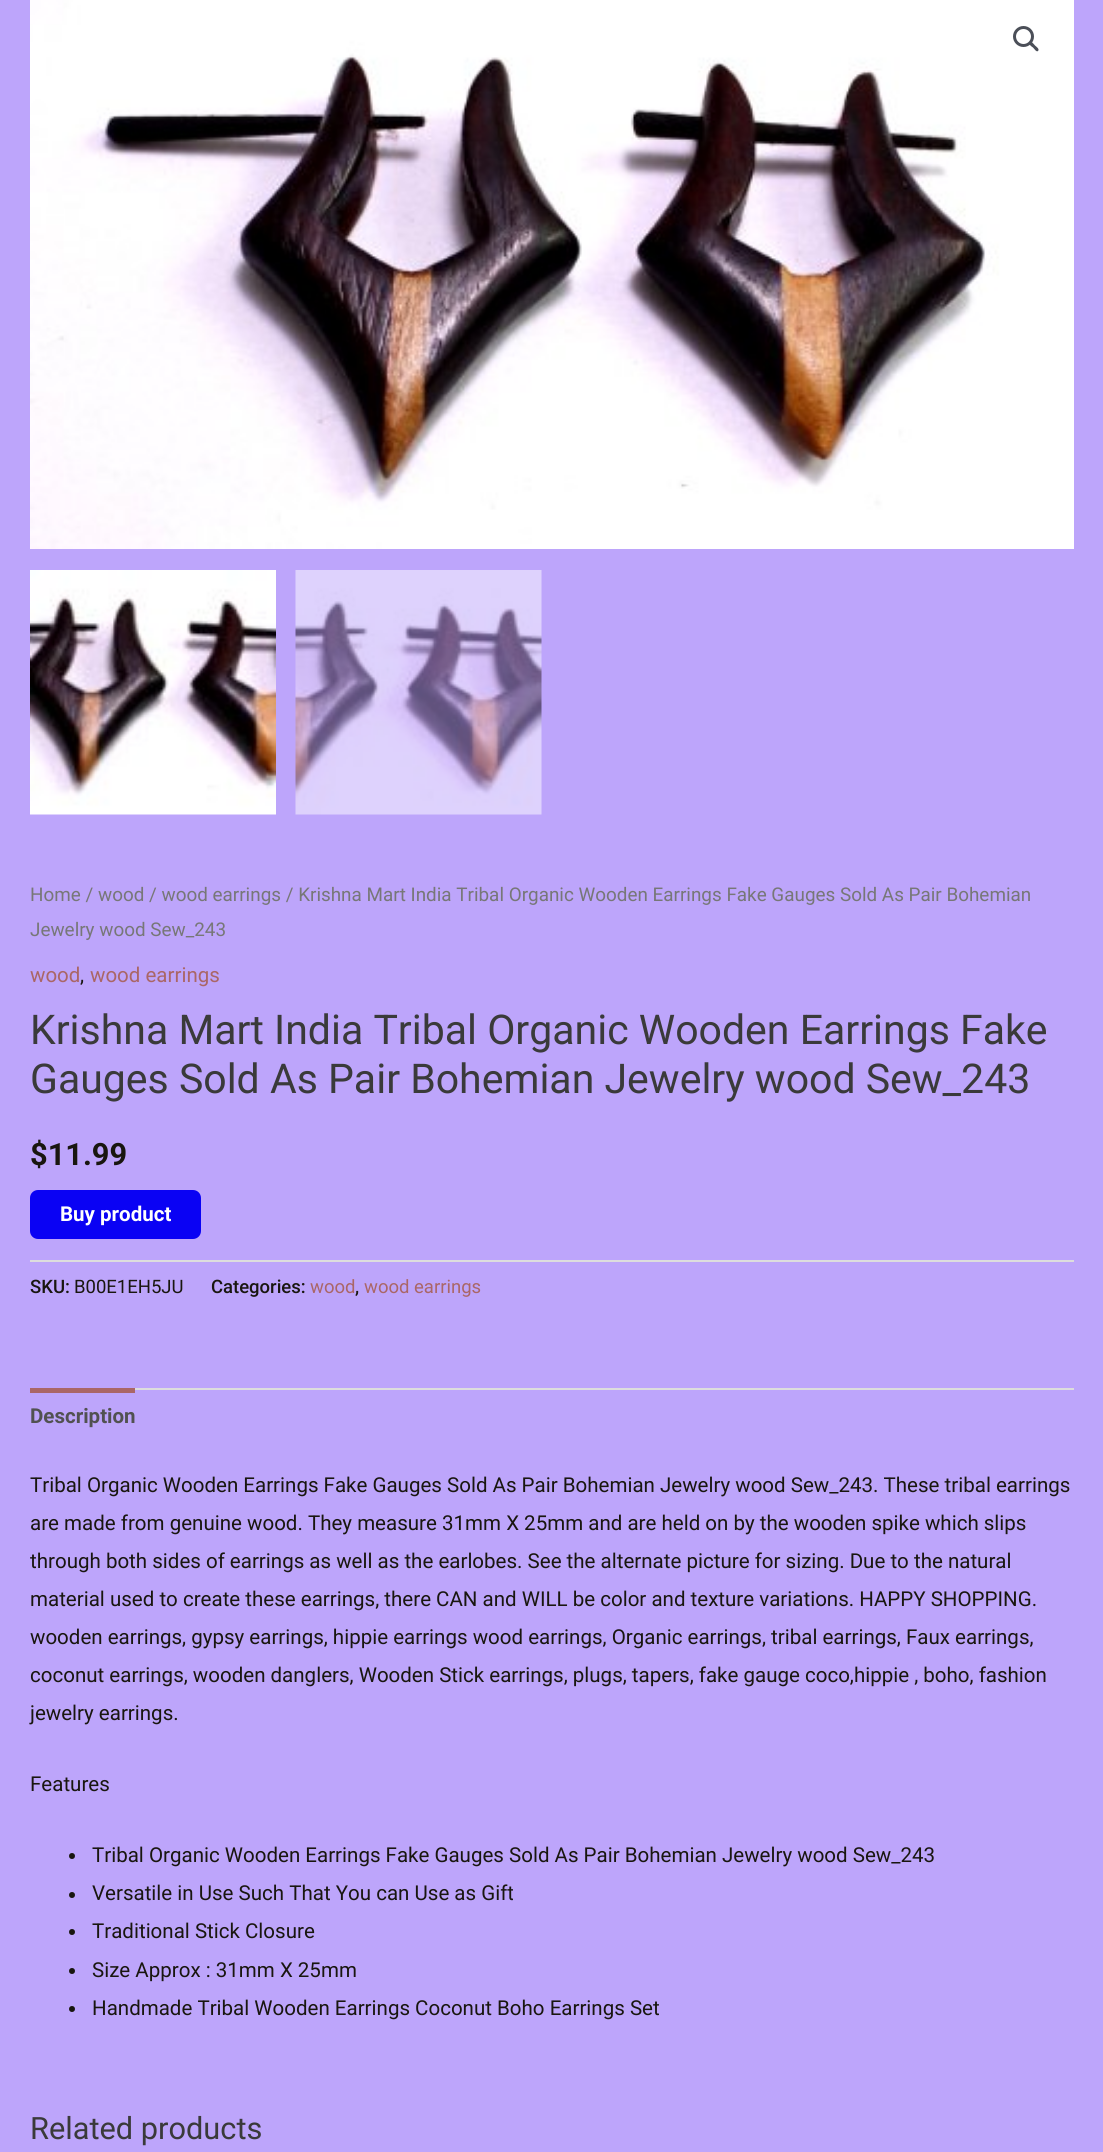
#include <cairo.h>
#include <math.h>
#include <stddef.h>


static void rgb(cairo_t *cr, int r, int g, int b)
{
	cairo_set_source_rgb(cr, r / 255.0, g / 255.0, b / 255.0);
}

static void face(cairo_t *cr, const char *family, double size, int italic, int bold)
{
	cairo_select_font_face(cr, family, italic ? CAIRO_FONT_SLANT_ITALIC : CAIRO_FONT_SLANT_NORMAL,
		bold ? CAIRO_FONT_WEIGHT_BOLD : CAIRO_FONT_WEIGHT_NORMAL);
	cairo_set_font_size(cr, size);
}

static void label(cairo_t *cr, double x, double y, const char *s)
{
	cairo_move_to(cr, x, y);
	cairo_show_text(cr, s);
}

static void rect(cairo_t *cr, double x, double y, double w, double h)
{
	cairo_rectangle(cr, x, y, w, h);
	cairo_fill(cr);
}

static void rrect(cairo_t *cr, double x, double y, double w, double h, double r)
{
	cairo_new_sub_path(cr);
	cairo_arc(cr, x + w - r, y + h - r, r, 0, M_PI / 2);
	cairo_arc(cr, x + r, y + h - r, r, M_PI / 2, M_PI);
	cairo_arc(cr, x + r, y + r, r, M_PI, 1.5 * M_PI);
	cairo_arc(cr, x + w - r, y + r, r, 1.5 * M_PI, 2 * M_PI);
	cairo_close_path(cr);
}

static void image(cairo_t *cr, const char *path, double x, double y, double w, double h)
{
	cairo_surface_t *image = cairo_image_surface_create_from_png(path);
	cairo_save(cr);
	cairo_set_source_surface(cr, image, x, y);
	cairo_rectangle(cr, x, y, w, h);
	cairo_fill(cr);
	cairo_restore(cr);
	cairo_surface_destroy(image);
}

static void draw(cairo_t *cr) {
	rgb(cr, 189, 165, 251);
	cairo_paint(cr);
	image(cr, "image0.png", 30, 0, 1044, 549);
	cairo_arc(cr, 1023.5, 36.5, 9, 0, 2 * M_PI);
	rgb(cr, 75, 79, 88);
	cairo_set_line_width(cr, 3);
	cairo_stroke(cr);
	cairo_new_path(cr);
	cairo_move_to(cr, 1029.5, 42.5);
	cairo_curve_to(cr, 1031.5, 40.5, 1034, 44.5, 1035, 45.5);
	cairo_curve_to(cr, 1036, 46.5, 1040, 49, 1038, 51);
	cairo_curve_to(cr, 1036.5, 52.5, 1034, 48.5, 1033, 47.5);
	cairo_curve_to(cr, 1032, 47, 1028, 44, 1029.5, 42.5);
	cairo_close_path(cr);
	cairo_fill(cr);
	image(cr, "image1.png", 30, 570, 246, 245);
	image(cr, "image2.png", 295, 570, 247, 245);
	face(cr, "Roboto", 18.88, 0, 0);
	rgb(cr, 119, 119, 119);
	label(cr, 30, 901, "Home / wood / wood earrings / Krishna Mart India Tribal Organic Wooden Earrings Fake Gauges Sold As Pair Bohemian");
	label(cr, 30, 936, "Jewelry wood Sew_243");
	face(cr, "Roboto", 20.52, 0, 0);
	rgb(cr, 170, 102, 102);
	label(cr, 30, 982, "wood");
	rgb(cr, 25, 22, 15);
	label(cr, 80, 982, ",");
	rgb(cr, 170, 102, 102);
	label(cr, 90, 982, "wood earrings");
	face(cr, "Roboto", 41, 0, 0);
	rgb(cr, 58, 58, 58);
	label(cr, 30, 1044, "Krishna Mart India Tribal Organic Wooden Earrings Fake");
	label(cr, 30, 1093, "Gauges Sold As Pair Bohemian Jewelry wood Sew_243");
	face(cr, "Roboto", 30.75, 0, 1);
	rgb(cr, 25, 22, 15);
	label(cr, 30, 1165, "$11.99");
	rgb(cr, 10, 2, 244);
	rrect(cr, 30, 1190, 171, 49, 8);
	cairo_fill(cr);
	face(cr, "Roboto", 20.52, 0, 1);
	rgb(cr, 255, 255, 255);
	label(cr, 60, 1221, "Buy product");
	rgb(cr, 221, 221, 221);
	rect(cr, 30, 1260, 1044, 2);
	face(cr, "Roboto Medium", 18.5, 0, 0);
	rgb(cr, 25, 22, 15);
	label(cr, 30, 1293, "SKU:");
	face(cr, "Roboto", 18.5, 0, 0);
	label(cr, 74, 1293, "B00E1EH5JU");
	face(cr, "Roboto Medium", 18.5, 0, 0);
	label(cr, 211, 1293, "Categories:");
	face(cr, "Roboto", 18.5, 0, 0);
	rgb(cr, 170, 102, 102);
	label(cr, 310, 1293, "wood");
	face(cr, "Roboto Medium", 18.5, 0, 0);
	rgb(cr, 25, 22, 15);
	label(cr, 355, 1293, ",");
	face(cr, "Roboto", 18.5, 0, 0);
	rgb(cr, 170, 102, 102);
	label(cr, 364, 1293, "wood earrings");
	rgb(cr, 221, 221, 221);
	rect(cr, 135, 1388, 939, 2);
	rgb(cr, 170, 102, 102);
	rect(cr, 30, 1388, 105, 5);
	face(cr, "Roboto", 20.52, 0, 1);
	rgb(cr, 81, 81, 81);
	label(cr, 30, 1423, "Description");
	face(cr, "Roboto", 20.52, 0, 0);
	rgb(cr, 25, 22, 15);
	label(cr, 30, 1492, "Tribal Organic Wooden Earrings Fake Gauges Sold As Pair Bohemian Jewelry wood Sew_243. These tribal earrings");
	label(cr, 30, 1530, "are made from genuine wood. They measure 31mm X 25mm and are held on by the wooden spike which slips");
	label(cr, 30, 1568, "through both sides of earrings as well as the earlobes. See the alternate picture for sizing. Due to the natural");
	label(cr, 30, 1606, "material used to create these earrings, there CAN and WILL be color and texture variations. HAPPY SHOPPING.");
	label(cr, 30, 1644, "wooden earrings, gypsy earrings, hippie earrings wood earrings, Organic earrings, tribal earrings, Faux earrings,");
	label(cr, 30, 1682, "coconut earrings, wooden danglers, Wooden Stick earrings, plugs, tapers, fake gauge coco,hippie , boho, fashion");
	label(cr, 30, 1720, "jewelry earrings.");
	label(cr, 30, 1791, "Features");
	cairo_new_path(cr);
	cairo_arc(cr, 72, 1856, 3, 0, 2 * M_PI);
	cairo_fill(cr);
	label(cr, 92, 1862, "Tribal Organic Wooden Earrings Fake Gauges Sold As Pair Bohemian Jewelry wood Sew_243");
	cairo_new_path(cr);
	cairo_arc(cr, 72, 1895, 3, 0, 2 * M_PI);
	cairo_fill(cr);
	label(cr, 92, 1900, "Versatile in Use Such That You can Use as Gift");
	cairo_new_path(cr);
	cairo_arc(cr, 72, 1932, 3, 0, 2 * M_PI);
	cairo_fill(cr);
	label(cr, 92, 1938, "Traditional Stick Closure");
	cairo_new_path(cr);
	cairo_arc(cr, 72, 1971, 3, 0, 2 * M_PI);
	cairo_fill(cr);
	label(cr, 92, 1977, "Size Approx : 31mm X 25mm");
	cairo_new_path(cr);
	cairo_arc(cr, 72, 2009, 3, 0, 2 * M_PI);
	cairo_fill(cr);
	label(cr, 92, 2015, "Handmade Tribal Wooden Earrings Coconut Boho Earrings Set");
	face(cr, "Roboto", 30.75, 0, 0);
	rgb(cr, 58, 58, 58);
	label(cr, 30, 2139, "Related products");
}

int main(void) {
	cairo_surface_t *surface = cairo_image_surface_create(CAIRO_FORMAT_RGB24, 1103, 2152);
	cairo_t *cr = cairo_create(surface);
	cairo_font_options_t *options = cairo_font_options_create();
	cairo_font_options_set_hint_metrics(options, CAIRO_HINT_METRICS_OFF);
	cairo_font_options_set_hint_style(options, CAIRO_HINT_STYLE_NONE);
	cairo_set_font_options(cr, options);
	cairo_set_miter_limit(cr, 4);
	draw(cr);
	cairo_surface_write_to_png(surface, "render.png");
	cairo_font_options_destroy(options);
	cairo_destroy(cr);
	cairo_surface_destroy(surface);
	return 0;
}
